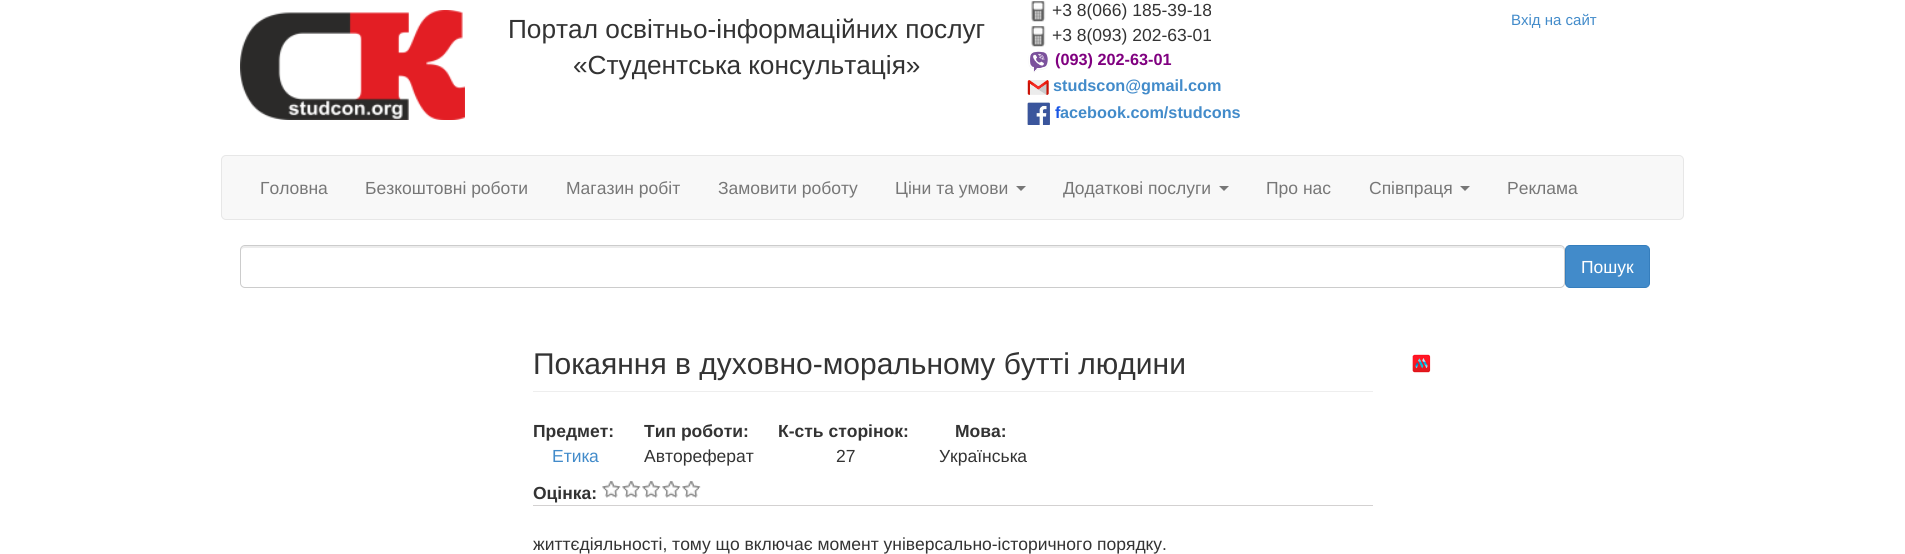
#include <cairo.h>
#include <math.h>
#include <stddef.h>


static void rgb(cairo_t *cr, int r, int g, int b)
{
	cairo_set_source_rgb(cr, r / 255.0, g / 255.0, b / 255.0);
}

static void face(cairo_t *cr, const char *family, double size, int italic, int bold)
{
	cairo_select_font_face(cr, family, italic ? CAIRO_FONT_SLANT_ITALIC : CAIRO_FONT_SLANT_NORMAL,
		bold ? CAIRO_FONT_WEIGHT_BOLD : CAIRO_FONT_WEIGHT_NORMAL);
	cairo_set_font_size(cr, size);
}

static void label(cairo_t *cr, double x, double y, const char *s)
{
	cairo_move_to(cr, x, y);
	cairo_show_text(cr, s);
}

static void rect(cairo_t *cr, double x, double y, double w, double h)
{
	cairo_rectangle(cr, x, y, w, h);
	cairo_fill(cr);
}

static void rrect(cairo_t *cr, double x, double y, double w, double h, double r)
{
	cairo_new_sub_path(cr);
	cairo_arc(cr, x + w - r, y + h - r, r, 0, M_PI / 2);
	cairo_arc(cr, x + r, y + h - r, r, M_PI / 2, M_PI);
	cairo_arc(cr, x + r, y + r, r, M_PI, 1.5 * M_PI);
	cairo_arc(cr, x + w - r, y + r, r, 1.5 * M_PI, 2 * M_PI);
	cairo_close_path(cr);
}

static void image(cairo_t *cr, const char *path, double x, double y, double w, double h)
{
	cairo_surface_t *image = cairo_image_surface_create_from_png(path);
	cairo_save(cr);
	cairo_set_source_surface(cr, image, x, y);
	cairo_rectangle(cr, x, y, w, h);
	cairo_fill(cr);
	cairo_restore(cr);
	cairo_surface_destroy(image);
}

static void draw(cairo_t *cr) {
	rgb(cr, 255, 255, 255);
	cairo_paint(cr);
	image(cr, "image0.png", 240, 10, 225, 110);
	face(cr, "Liberation Sans", 26.25, 0, 0);
	rgb(cr, 51, 51, 51);
	label(cr, 508, 38, "Портал освітньо-інформаційних послуг");
	label(cr, 573, 74, "«Студентська консультація»");
	image(cr, "image1.png", 1031, 1, 15, 21);
	face(cr, "Liberation Sans", 17.5, 0, 0);
	label(cr, 1052, 16, "+3 8(066) 185-39-18");
	image(cr, "image1.png", 1031, 26, 15, 21);
	label(cr, 1052, 41, "+3 8(093) 202-63-01");
	image(cr, "image2.png", 1028, 51, 21, 22);
	face(cr, "Liberation Sans", 16.25, 0, 1);
	rgb(cr, 128, 0, 128);
	label(cr, 1055, 65, "(093) 202-63-01");
	image(cr, "image3.png", 1027, 80, 22, 15);
	rgb(cr, 66, 139, 202);
	label(cr, 1053, 91, "studscon@gmail.com");
	image(cr, "image4.png", 1027, 102, 23, 23);
	rgb(cr, 25, 86, 229);
	label(cr, 1055, 118, "f");
	rgb(cr, 66, 139, 202);
	label(cr, 1060, 118, "acebook.com/studcons");
	face(cr, "Liberation Sans", 15, 0, 0);
	label(cr, 1511, 25, "Вхід на сайт");
	rgb(cr, 248, 248, 248);
	rrect(cr, 221.5, 155.5, 1462, 64, 4.5);
	cairo_fill_preserve(cr);
	rgb(cr, 231, 231, 231);
	cairo_set_line_width(cr, 1);
	cairo_stroke(cr);
	face(cr, "Liberation Sans", 17.5, 0, 0);
	rgb(cr, 119, 119, 119);
	label(cr, 260, 194, "Головна");
	label(cr, 365, 194, "Безкоштовні роботи");
	label(cr, 566, 194, "Магазин робіт");
	label(cr, 718, 194, "Замовити роботу");
	label(cr, 895, 194, "Ціни та умови");
	cairo_new_path(cr);
	cairo_move_to(cr, 1016, 186);
	cairo_line_to(cr, 1026, 186);
	cairo_line_to(cr, 1021, 191);
	cairo_close_path(cr);
	cairo_fill(cr);
	label(cr, 1063, 194, "Додаткові послуги");
	cairo_new_path(cr);
	cairo_move_to(cr, 1219, 186);
	cairo_line_to(cr, 1229, 186);
	cairo_line_to(cr, 1224, 191);
	cairo_close_path(cr);
	cairo_fill(cr);
	label(cr, 1266, 194, "Про нас");
	label(cr, 1369, 194, "Співпраця");
	cairo_new_path(cr);
	cairo_move_to(cr, 1460, 186);
	cairo_line_to(cr, 1470, 186);
	cairo_line_to(cr, 1465, 191);
	cairo_close_path(cr);
	cairo_fill(cr);
	label(cr, 1507, 194, "Реклама");
	rgb(cr, 236, 236, 236);
	cairo_new_path(cr);
	cairo_move_to(cr, 245, 248);
	cairo_line_to(cr, 1560, 248);
	cairo_curve_to(cr, 1562, 248, 1564, 249, 1564, 251);
	cairo_line_to(cr, 1564, 250);
	cairo_curve_to(cr, 1564, 248, 1562, 246, 1560, 246);
	cairo_line_to(cr, 245, 246);
	cairo_curve_to(cr, 243, 246, 241, 248, 241, 250);
	cairo_line_to(cr, 241, 251);
	cairo_curve_to(cr, 241, 249, 243, 248, 245, 248);
	cairo_close_path(cr);
	cairo_fill(cr);
	rrect(cr, 240.5, 245.5, 1324, 42, 4.5);
	rgb(cr, 204, 204, 204);
	cairo_stroke(cr);
	rgb(cr, 66, 139, 202);
	rrect(cr, 1565.5, 245.5, 84, 42, 4.5);
	cairo_fill_preserve(cr);
	rgb(cr, 53, 126, 189);
	cairo_stroke(cr);
	rgb(cr, 255, 255, 255);
	label(cr, 1581, 273, "Пошук");
	rgb(cr, 238, 238, 238);
	rect(cr, 533, 391, 840, 1);
	face(cr, "Liberation Sans", 30, 0, 0);
	rgb(cr, 51, 51, 51);
	label(cr, 533, 374, "Покаяння в духовно-моральному бутті людини");
	face(cr, "Liberation Sans", 17.5, 0, 1);
	label(cr, 533, 437, "Предмет:");
	face(cr, "Liberation Sans", 17.5, 0, 0);
	rgb(cr, 66, 139, 202);
	label(cr, 552, 462, "Етика");
	face(cr, "Liberation Sans", 17.5, 0, 1);
	rgb(cr, 51, 51, 51);
	label(cr, 644, 437, "Тип роботи:");
	face(cr, "Liberation Sans", 17.5, 0, 0);
	label(cr, 644, 462, "Автореферат");
	face(cr, "Liberation Sans", 17.5, 0, 1);
	label(cr, 778, 437, "К-сть сторінок:");
	face(cr, "Liberation Sans", 17.5, 0, 0);
	label(cr, 836, 462, "27");
	face(cr, "Liberation Sans", 17.5, 0, 1);
	label(cr, 955, 437, "Мова:");
	face(cr, "Liberation Sans", 17.5, 0, 0);
	label(cr, 939, 462, "Українська");
	rgb(cr, 211, 209, 209);
	rect(cr, 533, 505, 840, 1);
	face(cr, "Liberation Sans", 17.5, 0, 1);
	rgb(cr, 51, 51, 51);
	label(cr, 533, 499, "Оцінка:");
	image(cr, "image5.png", 602, 481, 19, 17);
	image(cr, "image6.png", 602, 481, 19, 17);
	image(cr, "image5.png", 622, 481, 19, 17);
	image(cr, "image6.png", 622, 481, 19, 17);
	image(cr, "image5.png", 642, 481, 19, 17);
	image(cr, "image6.png", 642, 481, 19, 17);
	image(cr, "image5.png", 662, 481, 19, 17);
	image(cr, "image6.png", 662, 481, 19, 17);
	image(cr, "image5.png", 682, 481, 19, 17);
	image(cr, "image6.png", 682, 481, 19, 17);
	face(cr, "Liberation Sans", 17.5, 0, 0);
	label(cr, 533, 550, "життєдіяльності, тому що включає момент універсально-історичного порядку.");
	image(cr, "image7.png", 1412, 354, 19, 19);
}

int main(void) {
	cairo_surface_t *surface = cairo_image_surface_create(CAIRO_FORMAT_RGB24, 1905, 554);
	cairo_t *cr = cairo_create(surface);
	cairo_font_options_t *options = cairo_font_options_create();
	cairo_font_options_set_hint_metrics(options, CAIRO_HINT_METRICS_OFF);
	cairo_font_options_set_hint_style(options, CAIRO_HINT_STYLE_NONE);
	cairo_set_font_options(cr, options);
	cairo_set_miter_limit(cr, 4);
	draw(cr);
	cairo_surface_write_to_png(surface, "render.png");
	cairo_font_options_destroy(options);
	cairo_destroy(cr);
	cairo_surface_destroy(surface);
	return 0;
}
